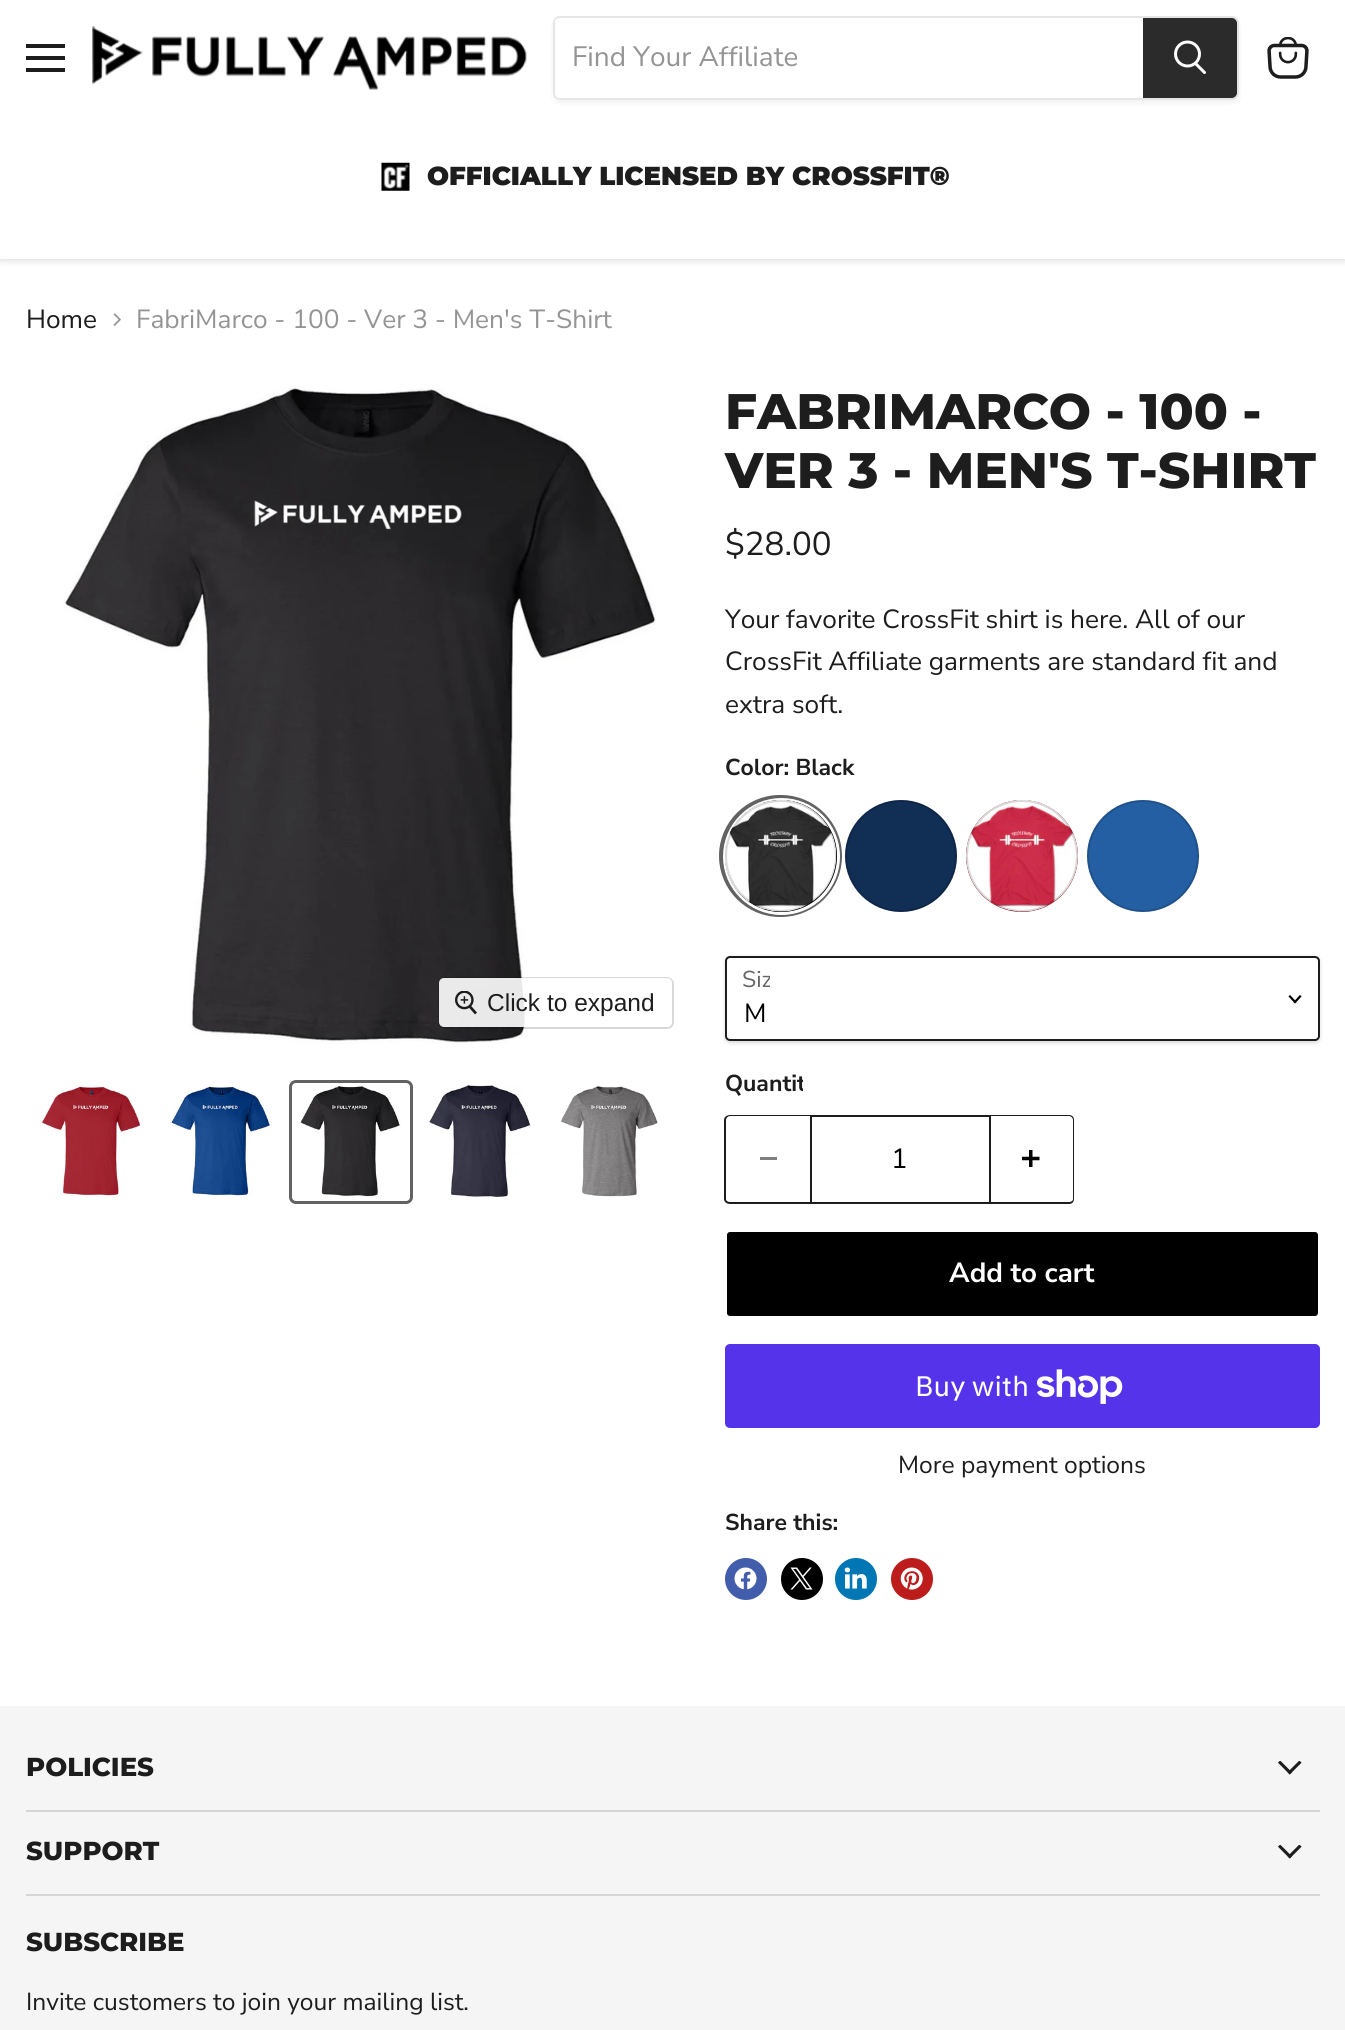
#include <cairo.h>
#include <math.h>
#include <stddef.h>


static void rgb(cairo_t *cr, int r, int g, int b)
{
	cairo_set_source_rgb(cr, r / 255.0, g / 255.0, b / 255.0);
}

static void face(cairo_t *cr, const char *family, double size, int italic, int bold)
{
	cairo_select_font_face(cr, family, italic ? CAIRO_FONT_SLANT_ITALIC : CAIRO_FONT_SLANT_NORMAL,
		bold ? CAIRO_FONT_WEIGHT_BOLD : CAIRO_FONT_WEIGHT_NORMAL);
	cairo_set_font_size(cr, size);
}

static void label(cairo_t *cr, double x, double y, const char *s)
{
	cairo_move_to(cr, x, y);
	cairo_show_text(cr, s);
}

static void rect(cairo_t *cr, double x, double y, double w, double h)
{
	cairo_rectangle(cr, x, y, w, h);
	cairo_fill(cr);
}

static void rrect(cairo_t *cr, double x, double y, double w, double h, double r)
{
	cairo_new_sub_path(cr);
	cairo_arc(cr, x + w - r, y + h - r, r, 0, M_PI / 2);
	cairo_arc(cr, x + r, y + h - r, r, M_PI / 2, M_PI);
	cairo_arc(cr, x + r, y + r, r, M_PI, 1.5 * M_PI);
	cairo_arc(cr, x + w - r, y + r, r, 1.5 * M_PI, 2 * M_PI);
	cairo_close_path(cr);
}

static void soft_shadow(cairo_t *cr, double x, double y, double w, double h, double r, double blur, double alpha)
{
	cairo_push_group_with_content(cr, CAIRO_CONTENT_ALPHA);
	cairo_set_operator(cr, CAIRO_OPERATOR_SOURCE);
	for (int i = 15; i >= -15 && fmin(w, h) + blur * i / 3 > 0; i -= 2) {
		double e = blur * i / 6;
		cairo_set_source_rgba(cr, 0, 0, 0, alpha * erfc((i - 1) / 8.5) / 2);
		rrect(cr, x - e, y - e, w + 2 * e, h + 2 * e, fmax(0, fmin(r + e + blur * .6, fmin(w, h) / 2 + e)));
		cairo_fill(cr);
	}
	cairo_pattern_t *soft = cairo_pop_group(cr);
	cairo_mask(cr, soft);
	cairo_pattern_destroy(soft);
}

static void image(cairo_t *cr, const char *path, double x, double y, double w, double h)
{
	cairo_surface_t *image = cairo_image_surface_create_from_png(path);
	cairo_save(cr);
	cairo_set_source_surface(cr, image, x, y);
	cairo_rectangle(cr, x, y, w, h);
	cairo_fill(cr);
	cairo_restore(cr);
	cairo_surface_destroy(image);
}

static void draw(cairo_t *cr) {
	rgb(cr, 255, 255, 255);
	cairo_paint(cr);
	cairo_save(cr);
	cairo_rectangle(cr, 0, 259, 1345, 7);
	cairo_clip(cr);
	rgb(cr, 128, 128, 128);
	soft_shadow(cr, 0, 2, 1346, 259, 0, 3.5, 0.25);
	cairo_restore(cr);
	rgb(cr, 29, 29, 29);
	rect(cr, 26, 44, 39, 4);
	rect(cr, 26, 56, 39, 4);
	rect(cr, 26, 68, 39, 4);
	image(cr, "image0.png", 92, 26, 435, 64);
	cairo_save(cr);
	cairo_set_fill_rule(cr, CAIRO_FILL_RULE_EVEN_ODD);
	cairo_new_path(cr);
	cairo_move_to(cr, 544, 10);
	cairo_line_to(cr, 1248, 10);
	cairo_line_to(cr, 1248, 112);
	cairo_line_to(cr, 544, 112);
	cairo_close_path(cr);
	cairo_move_to(cr, 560, 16);
	cairo_line_to(cr, 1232, 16);
	cairo_curve_to(cr, 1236, 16, 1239, 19, 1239, 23);
	cairo_line_to(cr, 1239, 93);
	cairo_curve_to(cr, 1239, 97, 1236, 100, 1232, 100);
	cairo_line_to(cr, 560, 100);
	cairo_curve_to(cr, 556, 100, 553, 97, 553, 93);
	cairo_line_to(cr, 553, 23);
	cairo_curve_to(cr, 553, 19, 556, 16, 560, 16);
	cairo_close_path(cr);
	cairo_clip(cr);
	rgb(cr, 128, 128, 128);
	soft_shadow(cr, 553, 19, 686, 84, 7, 2.5, 0.11);
	cairo_restore(cr);
	rrect(cr, 554, 17, 684, 82, 6);
	cairo_set_source_rgba(cr, 0.502, 0.502, 0.502, 0.2);
	cairo_stroke(cr);
	rgb(cr, 255, 255, 255);
	cairo_new_path(cr);
	cairo_move_to(cr, 560, 18);
	cairo_line_to(cr, 1143, 18);
	cairo_line_to(cr, 1143, 98);
	cairo_line_to(cr, 560, 98);
	cairo_curve_to(cr, 557, 98, 555, 96, 555, 93);
	cairo_line_to(cr, 555, 23);
	cairo_curve_to(cr, 555, 20, 557, 18, 560, 18);
	cairo_close_path(cr);
	cairo_fill(cr);
	face(cr, "Nunito Sans", 28, 0, 0);
	rgb(cr, 148, 148, 148);
	label(cr, 572, 66, "Find Your Affiliate");
	rgb(cr, 43, 43, 43);
	cairo_new_path(cr);
	cairo_move_to(cr, 1144, 19);
	cairo_line_to(cr, 1232, 19);
	cairo_curve_to(cr, 1234, 19, 1236, 21, 1236, 23);
	cairo_line_to(cr, 1236, 93);
	cairo_curve_to(cr, 1236, 95, 1234, 97, 1232, 97);
	cairo_line_to(cr, 1144, 97);
	cairo_close_path(cr);
	cairo_fill_preserve(cr);
	cairo_stroke(cr);
	cairo_new_path(cr);
	cairo_move_to(cr, 1204.5, 72.5);
	cairo_line_to(cr, 1196, 64);
	rgb(cr, 255, 255, 255);
	cairo_set_line_width(cr, 3);
	cairo_set_line_cap(cr, CAIRO_LINE_CAP_ROUND);
	cairo_stroke(cr);
	cairo_arc(cr, 1187.5, 54, 12, 0, 2 * M_PI);
	cairo_set_line_cap(cr, CAIRO_LINE_CAP_BUTT);
	cairo_stroke(cr);
	image(cr, "image1.png", 381, 162, 29, 29);
	face(cr, "Montserrat Black", 26, 0, 0);
	rgb(cr, 29, 29, 29);
	label(cr, 427, 185, "OFFICIALLY LICENSED BY CROSSFIT®");
	image(cr, "image2.png", 1267, 37, 42, 42);
	face(cr, "Nunito Sans", 26.25, 0, 0);
	label(cr, 26, 328, "Home");
	image(cr, "image3.png", 113, 313, 8, 13);
	rgb(cr, 148, 148, 148);
	label(cr, 136, 328, "FabriMarco - 100 - Ver 3 - Men's T-Shirt");
	image(cr, "image4.png", 63, 387, 593, 657);
	rrect(cr, 439, 978, 234, 50, 6);
	cairo_set_source_rgba(cr, 0, 0, 0, 0.15);
	cairo_set_line_width(cr, 2);
	cairo_stroke(cr);
	cairo_set_source_rgba(cr, 1, 1, 1, 0.9);
	rrect(cr, 439, 978, 233, 49, 5);
	cairo_fill(cr);
	image(cr, "image5.png", 455, 991, 22, 24);
	face(cr, "Liberation Sans", 24.5, 0, 0);
	rgb(cr, 29, 29, 29);
	label(cr, 487, 1011, "Click to expand");
	image(cr, "image6.png", 41, 1085, 100, 112);
	image(cr, "image7.png", 170, 1085, 100, 112);
	rrect(cr, 290.5, 1081.5, 121, 121, 5.5);
	rgb(cr, 98, 98, 98);
	cairo_set_line_width(cr, 3);
	cairo_stroke(cr);
	image(cr, "image8.png", 300, 1085, 101, 112);
	image(cr, "image9.png", 429, 1085, 102, 112);
	image(cr, "image10.png", 560, 1085, 98, 112);
	face(cr, "Montserrat ExtraBold", 49.9, 0, 0);
	rgb(cr, 29, 29, 29);
	label(cr, 725, 429, "FABRIMARCO - 100 -");
	label(cr, 725, 488, "VER 3 - MEN'S T-SHIRT");
	face(cr, "Nunito Sans", 33, 0, 0);
	label(cr, 725, 555, "$28.00");
	face(cr, "Nunito Sans", 26.25, 0, 0);
	label(cr, 725, 628, "Your favorite CrossFit shirt is here. All of our");
	label(cr, 725, 670, "CrossFit Affiliate garments are standard fit and");
	label(cr, 725, 713, "extra soft.");
	face(cr, "Nunito Sans", 23, 0, 1);
	label(cr, 725, 775, "Color: Black");
	rrect(cr, 721.5, 797.5, 118, 117, 58.5);
	rgb(cr, 98, 98, 98);
	cairo_set_line_width(cr, 5);
	cairo_stroke(cr);
	cairo_arc(cr, 781.5, 856.5, 57, 0, 2 * M_PI);
	rgb(cr, 255, 255, 255);
	cairo_set_line_width(cr, 3);
	cairo_stroke(cr);
	rgb(cr, 0, 0, 0);
	cairo_arc(cr, 781, 856, 56, 0, 2 * M_PI);
	cairo_fill(cr);
	image(cr, "image11.png", 725, 800, 112, 112);
	cairo_arc(cr, 781, 856, 55, 0, 2 * M_PI);
	cairo_set_source_rgba(cr, 0, 0, 0, 0.15);
	cairo_set_line_width(cr, 2);
	cairo_stroke(cr);
	rgb(cr, 17, 46, 85);
	cairo_arc(cr, 901, 856, 56, 0, 2 * M_PI);
	cairo_fill(cr);
	cairo_arc(cr, 901, 856, 55, 0, 2 * M_PI);
	cairo_set_source_rgba(cr, 0, 0, 0, 0.15);
	cairo_stroke(cr);
	rgb(cr, 176, 37, 54);
	cairo_arc(cr, 1022, 856, 56, 0, 2 * M_PI);
	cairo_fill(cr);
	image(cr, "image12.png", 966, 800, 112, 112);
	cairo_arc(cr, 1022, 856, 55, 0, 2 * M_PI);
	cairo_set_source_rgba(cr, 0, 0, 0, 0.15);
	cairo_stroke(cr);
	rgb(cr, 37, 95, 163);
	cairo_arc(cr, 1143, 856, 56, 0, 2 * M_PI);
	cairo_fill(cr);
	cairo_arc(cr, 1143, 856, 55, 0, 2 * M_PI);
	cairo_set_source_rgba(cr, 0, 0, 0, 0.15);
	cairo_stroke(cr);
	rgb(cr, 0, 0, 0);
	soft_shadow(cr, 725, 957, 595, 86, 5, 2, 0.15);
	rgb(cr, 255, 255, 255);
	rrect(cr, 726, 957, 593, 83, 4);
	cairo_fill_preserve(cr);
	rgb(cr, 29, 29, 29);
	cairo_stroke(cr);
	face(cr, "Nunito Sans", 23, 0, 0);
	rgb(cr, 102, 102, 102);
	label(cr, 742, 987, "Siz");
	rgb(cr, 255, 255, 255);
	rect(cr, 770, 975, 2, 12);
	cairo_new_path(cr);
	cairo_move_to(cr, 1295, 1002);
	cairo_line_to(cr, 1300, 996.5);
	cairo_move_to(cr, 1295, 1002);
	cairo_line_to(cr, 1290, 996.5);
	rgb(cr, 0, 0, 0);
	cairo_set_line_width(cr, 2.2);
	cairo_set_line_cap(cr, CAIRO_LINE_CAP_SQUARE);
	cairo_stroke(cr);
	face(cr, "Nunito Sans", 26.25, 0, 0);
	label(cr, 744, 1022, "M");
	face(cr, "Nunito Sans", 23, 0, 1);
	rgb(cr, 29, 29, 29);
	label(cr, 725, 1091, "Quantit");
	rgb(cr, 255, 255, 255);
	rect(cr, 803, 1079, 3, 13);
	rgb(cr, 29, 29, 29);
	cairo_set_fill_rule(cr, CAIRO_FILL_RULE_EVEN_ODD);
	cairo_new_path(cr);
	cairo_move_to(cr, 730, 1115);
	cairo_line_to(cr, 810, 1115);
	cairo_line_to(cr, 810, 1204);
	cairo_line_to(cr, 730, 1204);
	cairo_curve_to(cr, 727, 1204, 724, 1202, 724, 1199);
	cairo_line_to(cr, 724, 1120);
	cairo_curve_to(cr, 724, 1117, 727, 1115, 730, 1115);
	cairo_close_path(cr);
	cairo_move_to(cr, 730, 1116);
	cairo_line_to(cr, 810, 1116);
	cairo_line_to(cr, 810, 1202);
	cairo_line_to(cr, 730, 1202);
	cairo_curve_to(cr, 728, 1202, 726, 1201, 726, 1199);
	cairo_line_to(cr, 726, 1120);
	cairo_curve_to(cr, 726, 1118, 728, 1116, 730, 1116);
	cairo_close_path(cr);
	cairo_fill(cr);
	rgb(cr, 128, 128, 128);
	rect(cr, 760, 1157, 17, 3);
	cairo_rectangle(cr, 811, 1116, 179, 87);
	rgb(cr, 29, 29, 29);
	cairo_set_line_width(cr, 2);
	cairo_set_line_cap(cr, CAIRO_LINE_CAP_BUTT);
	cairo_stroke(cr);
	face(cr, "Nunito Sans", 27.75, 0, 0);
	rgb(cr, 0, 0, 0);
	label(cr, 891, 1168, "1");
	rgb(cr, 29, 29, 29);
	cairo_new_path(cr);
	cairo_move_to(cr, 990, 1115);
	cairo_line_to(cr, 1069, 1115);
	cairo_curve_to(cr, 1072, 1115, 1074, 1117, 1074, 1120);
	cairo_line_to(cr, 1074, 1199);
	cairo_curve_to(cr, 1074, 1202, 1072, 1204, 1069, 1204);
	cairo_line_to(cr, 990, 1204);
	cairo_close_path(cr);
	cairo_move_to(cr, 990, 1116);
	cairo_line_to(cr, 1069, 1116);
	cairo_curve_to(cr, 1071, 1116, 1073, 1118, 1073, 1120);
	cairo_line_to(cr, 1073, 1199);
	cairo_curve_to(cr, 1073, 1201, 1071, 1202, 1069, 1202);
	cairo_line_to(cr, 990, 1202);
	cairo_close_path(cr);
	cairo_fill(cr);
	image(cr, "image13.png", 1022, 1150, 18, 17);
	rgb(cr, 0, 0, 0);
	rrect(cr, 726, 1231, 593, 86, 4);
	cairo_fill_preserve(cr);
	rgb(cr, 255, 255, 255);
	cairo_stroke(cr);
	face(cr, "Nunito Sans", 27.75, 0, 1);
	label(cr, 949, 1282, "Add to cart");
	rgb(cr, 84, 51, 235);
	rrect(cr, 725, 1344, 595, 84, 5);
	cairo_fill(cr);
	face(cr, "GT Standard", 28, 0, 0);
	rgb(cr, 255, 255, 255);
	label(cr, 915, 1396, "Buy with");
	image(cr, "image14.png", 1037, 1369, 86, 35);
	face(cr, "Nunito Sans", 24.6, 0, 0);
	rgb(cr, 29, 29, 29);
	label(cr, 898, 1473, "More payment options");
	face(cr, "Nunito Sans", 23, 0, 1);
	label(cr, 725, 1530, "Share this:");
	rgb(cr, 66, 93, 171);
	cairo_new_path(cr);
	cairo_arc(cr, 746, 1579, 21, 0, 2 * M_PI);
	cairo_fill(cr);
	image(cr, "image15.png", 734, 1567, 23, 23);
	rgb(cr, 0, 0, 0);
	cairo_arc(cr, 802, 1579, 21, 0, 2 * M_PI);
	cairo_fill(cr);
	image(cr, "image16.png", 790, 1567, 23, 23);
	rgb(cr, 0, 119, 181);
	cairo_arc(cr, 856, 1579, 21, 0, 2 * M_PI);
	cairo_fill(cr);
	image(cr, "image17.png", 844, 1567, 23, 22);
	rgb(cr, 189, 28, 28);
	cairo_arc(cr, 912, 1579, 21, 0, 2 * M_PI);
	cairo_fill(cr);
	image(cr, "image18.png", 900, 1567, 23, 23);
	rgb(cr, 245, 245, 245);
	rect(cr, 0, 1706, 1345, 324);
	rgb(cr, 213, 213, 213);
	rect(cr, 26, 1810, 1294, 2);
	face(cr, "Montserrat ExtraBold", 26, 0, 0);
	rgb(cr, 29, 29, 29);
	label(cr, 26, 1776, "POLICIES");
	image(cr, "image19.png", 1278, 1761, 24, 14);
	rgb(cr, 213, 213, 213);
	rect(cr, 26, 1894, 1294, 2);
	rgb(cr, 29, 29, 29);
	label(cr, 26, 1860, "SUPPORT");
	image(cr, "image19.png", 1278, 1845, 24, 14);
	label(cr, 26, 1951, "SUBSCRIBE");
	face(cr, "Nunito Sans", 24.6, 0, 0);
	label(cr, 26, 2010, "Invite customers to join your mailing list.");
}

int main(void) {
	cairo_surface_t *surface = cairo_image_surface_create(CAIRO_FORMAT_RGB24, 1345, 2030);
	cairo_t *cr = cairo_create(surface);
	cairo_font_options_t *options = cairo_font_options_create();
	cairo_font_options_set_hint_metrics(options, CAIRO_HINT_METRICS_OFF);
	cairo_font_options_set_hint_style(options, CAIRO_HINT_STYLE_NONE);
	cairo_set_font_options(cr, options);
	cairo_set_miter_limit(cr, 4);
	draw(cr);
	cairo_surface_write_to_png(surface, "render.png");
	cairo_font_options_destroy(options);
	cairo_destroy(cr);
	cairo_surface_destroy(surface);
	return 0;
}
